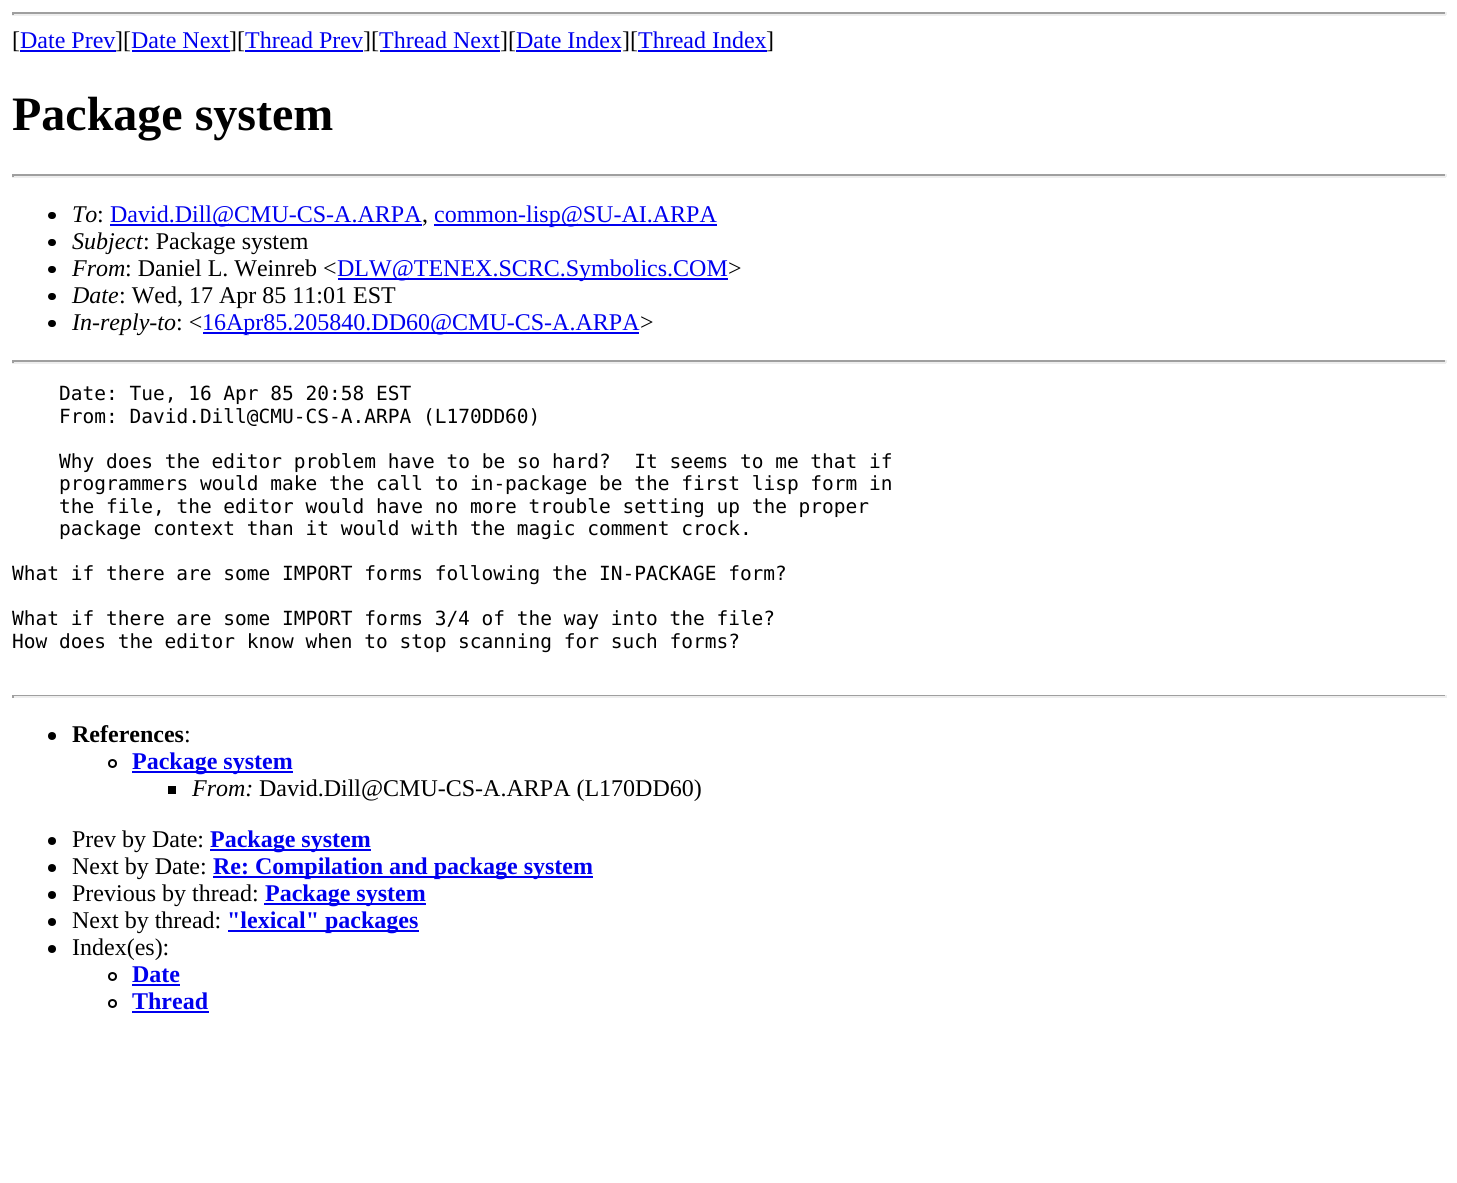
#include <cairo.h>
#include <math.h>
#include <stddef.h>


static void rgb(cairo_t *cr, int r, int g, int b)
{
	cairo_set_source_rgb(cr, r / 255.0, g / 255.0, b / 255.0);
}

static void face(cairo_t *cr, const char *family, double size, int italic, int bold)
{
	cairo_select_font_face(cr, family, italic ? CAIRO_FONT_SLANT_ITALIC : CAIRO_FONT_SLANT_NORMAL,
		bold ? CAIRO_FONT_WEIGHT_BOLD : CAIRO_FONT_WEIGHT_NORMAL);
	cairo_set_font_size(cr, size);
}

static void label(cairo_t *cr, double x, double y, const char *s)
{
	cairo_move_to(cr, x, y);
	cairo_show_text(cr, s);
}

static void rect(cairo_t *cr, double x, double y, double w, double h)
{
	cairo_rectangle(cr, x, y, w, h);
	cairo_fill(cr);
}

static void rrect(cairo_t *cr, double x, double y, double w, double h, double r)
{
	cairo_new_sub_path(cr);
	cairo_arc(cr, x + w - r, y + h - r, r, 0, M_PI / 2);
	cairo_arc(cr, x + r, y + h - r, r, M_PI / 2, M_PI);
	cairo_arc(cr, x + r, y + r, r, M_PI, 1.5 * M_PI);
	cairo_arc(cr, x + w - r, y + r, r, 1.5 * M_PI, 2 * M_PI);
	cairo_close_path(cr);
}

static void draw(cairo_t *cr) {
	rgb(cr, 255, 255, 255);
	cairo_paint(cr);
	rgb(cr, 159, 159, 159);
	rect(cr, 12, 12, 1434, 2);
	rgb(cr, 238, 238, 238);
	rect(cr, 1445, 12, 2, 3);
	rect(cr, 12, 14, 1434, 2);
	rgb(cr, 159, 159, 159);
	rect(cr, 12, 12, 2, 3);
	face(cr, "Liberation Serif", 24, 0, 0);
	rgb(cr, 0, 0, 0);
	label(cr, 12, 48, "[");
	rgb(cr, 0, 0, 238);
	label(cr, 20, 48, "Date Prev");
	rect(cr, 20, 50, 96, 2);
	rgb(cr, 0, 0, 0);
	label(cr, 115, 48, "][");
	rgb(cr, 0, 0, 238);
	label(cr, 131, 48, "Date Next");
	rect(cr, 132, 50, 98, 2);
	rgb(cr, 0, 0, 0);
	label(cr, 229, 48, "][");
	rgb(cr, 0, 0, 238);
	label(cr, 245, 48, "Thread Prev");
	rect(cr, 245, 50, 118, 2);
	rgb(cr, 0, 0, 0);
	label(cr, 363, 48, "][");
	rgb(cr, 0, 0, 238);
	label(cr, 379, 48, "Thread Next");
	rect(cr, 380, 50, 120, 2);
	rgb(cr, 0, 0, 0);
	label(cr, 500, 48, "][");
	rgb(cr, 0, 0, 238);
	label(cr, 516, 48, "Date Index");
	rect(cr, 516, 50, 105, 2);
	rgb(cr, 0, 0, 0);
	label(cr, 622, 48, "][");
	rgb(cr, 0, 0, 238);
	label(cr, 638, 48, "Thread Index");
	rect(cr, 638, 50, 129, 2);
	rgb(cr, 0, 0, 0);
	label(cr, 766, 48, "]");
	face(cr, "Liberation Serif", 48, 0, 1);
	label(cr, 12, 130, "Package system");
	rgb(cr, 159, 159, 159);
	rect(cr, 12, 174, 1434, 2);
	rgb(cr, 238, 238, 238);
	rect(cr, 1445, 174, 2, 3);
	rect(cr, 12, 176, 1434, 2);
	rgb(cr, 159, 159, 159);
	rect(cr, 12, 174, 2, 3);
	rgb(cr, 0, 0, 0);
	rrect(cr, 48, 212, 8, 7, 3.5);
	cairo_fill(cr);
	face(cr, "Liberation Serif", 24, 1, 0);
	label(cr, 72, 222, "To");
	face(cr, "Liberation Serif", 24, 0, 0);
	label(cr, 97, 222, ":");
	rgb(cr, 0, 0, 238);
	rect(cr, 110, 224, 312, 2);
	label(cr, 110, 222, "David.Dill@CMU-CS-A.ARPA");
	rect(cr, 434, 224, 283, 2);
	label(cr, 434, 222, "common-lisp@SU-AI.ARPA");
	rgb(cr, 0, 0, 0);
	label(cr, 422, 222, ",");
	rrect(cr, 48, 239, 8, 7, 3.5);
	cairo_fill(cr);
	face(cr, "Liberation Serif", 24, 1, 0);
	label(cr, 72, 249, "Subject");
	face(cr, "Liberation Serif", 24, 0, 0);
	label(cr, 143, 249, ": Package system");
	rrect(cr, 48, 266, 8, 7, 3.5);
	cairo_fill(cr);
	face(cr, "Liberation Serif", 24, 1, 0);
	label(cr, 72, 276, "From");
	face(cr, "Liberation Serif", 24, 0, 0);
	label(cr, 125, 276, ": Daniel L. Weinreb <");
	rgb(cr, 0, 0, 238);
	rect(cr, 338, 278, 390, 2);
	label(cr, 337, 276, "DLW@TENEX.SCRC.Symbolics.COM");
	rgb(cr, 0, 0, 0);
	label(cr, 728, 276, ">");
	rrect(cr, 48, 293, 8, 7, 3.5);
	cairo_fill(cr);
	face(cr, "Liberation Serif", 24, 1, 0);
	label(cr, 72, 303, "Date");
	face(cr, "Liberation Serif", 24, 0, 0);
	label(cr, 119, 303, ": Wed, 17 Apr 85 11:01 EST");
	rrect(cr, 48, 320, 8, 7, 3.5);
	cairo_fill(cr);
	face(cr, "Liberation Serif", 24, 1, 0);
	label(cr, 72, 330, "In-reply-to");
	face(cr, "Liberation Serif", 24, 0, 0);
	label(cr, 176, 330, ": <");
	rgb(cr, 0, 0, 238);
	rect(cr, 203, 332, 436, 2);
	label(cr, 202, 330, "16Apr85.205840.DD60@CMU-CS-A.ARPA");
	rgb(cr, 0, 0, 0);
	label(cr, 640, 330, ">");
	rgb(cr, 159, 159, 159);
	rect(cr, 12, 360, 1434, 2);
	rgb(cr, 238, 238, 238);
	rect(cr, 1445, 360, 2, 3);
	rect(cr, 12, 362, 1434, 2);
	rgb(cr, 159, 159, 159);
	rect(cr, 12, 360, 2, 3);
	face(cr, "DejaVu Sans Mono", 19.5, 0, 0);
	rgb(cr, 0, 0, 0);
	label(cr, 59, 400, "Date: Tue, 16 Apr 85 20:58 EST");
	label(cr, 59, 423, "From: David.Dill@CMU-CS-A.ARPA (L170DD60)");
	label(cr, 59, 468, "Why does the editor problem have to be so hard?  It seems to me that if");
	label(cr, 59, 490, "programmers would make the call to in-package be the first lisp form in");
	label(cr, 59, 513, "the file, the editor would have no more trouble setting up the proper");
	label(cr, 59, 535, "package context than it would with the magic comment crock.");
	label(cr, 12, 580, "What if there are some IMPORT forms following the IN-PACKAGE form?");
	label(cr, 12, 625, "What if there are some IMPORT forms 3/4 of the way into the file?");
	label(cr, 12, 648, "How does the editor know when to stop scanning for such forms?");
	rgb(cr, 159, 159, 159);
	rect(cr, 12, 695, 1434, 1);
	rgb(cr, 238, 238, 238);
	rect(cr, 1445, 695, 2, 3);
	rect(cr, 12, 696, 1434, 2);
	rgb(cr, 159, 159, 159);
	rect(cr, 12, 695, 2, 3);
	rgb(cr, 0, 0, 0);
	cairo_new_path(cr);
	cairo_arc(cr, 52, 736, 4, 0, 2 * M_PI);
	cairo_fill(cr);
	face(cr, "Liberation Serif", 24, 0, 1);
	label(cr, 72, 742, "References");
	face(cr, "Liberation Serif", 24, 0, 0);
	label(cr, 184, 742, ":");
	cairo_new_path(cr);
	cairo_arc(cr, 112.5, 763.5, 3.5, 0, 2 * M_PI);
	cairo_stroke(cr);
	rgb(cr, 0, 0, 238);
	rect(cr, 132, 771, 161, 2);
	face(cr, "Liberation Serif", 24, 0, 1);
	label(cr, 132, 769, "Package system");
	rgb(cr, 0, 0, 0);
	rect(cr, 168, 786, 8, 8);
	face(cr, "Liberation Serif", 24, 1, 0);
	label(cr, 192, 796, "From:");
	face(cr, "Liberation Serif", 24, 0, 0);
	label(cr, 259, 796, "David.Dill@CMU-CS-A.ARPA (L170DD60)");
	cairo_new_path(cr);
	cairo_arc(cr, 52, 841, 4, 0, 2 * M_PI);
	cairo_fill(cr);
	label(cr, 72, 847, "Prev by Date:");
	rgb(cr, 0, 0, 238);
	rect(cr, 210, 849, 161, 2);
	face(cr, "Liberation Serif", 24, 0, 1);
	label(cr, 210, 847, "Package system");
	rgb(cr, 0, 0, 0);
	cairo_new_path(cr);
	cairo_arc(cr, 52, 868, 4, 0, 2 * M_PI);
	cairo_fill(cr);
	face(cr, "Liberation Serif", 24, 0, 0);
	label(cr, 72, 874, "Next by Date:");
	rgb(cr, 0, 0, 238);
	rect(cr, 213, 876, 380, 2);
	face(cr, "Liberation Serif", 24, 0, 1);
	label(cr, 213, 874, "Re: Compilation and package system");
	rgb(cr, 0, 0, 0);
	cairo_new_path(cr);
	cairo_arc(cr, 52, 895, 4, 0, 2 * M_PI);
	cairo_fill(cr);
	face(cr, "Liberation Serif", 24, 0, 0);
	label(cr, 72, 901, "Previous by thread:");
	rgb(cr, 0, 0, 238);
	rect(cr, 264, 903, 162, 2);
	face(cr, "Liberation Serif", 24, 0, 1);
	label(cr, 265, 901, "Package system");
	rgb(cr, 0, 0, 0);
	cairo_new_path(cr);
	cairo_arc(cr, 52, 922, 4, 0, 2 * M_PI);
	cairo_fill(cr);
	face(cr, "Liberation Serif", 24, 0, 0);
	label(cr, 72, 928, "Next by thread:");
	rgb(cr, 0, 0, 238);
	rect(cr, 228, 930, 191, 2);
	face(cr, "Liberation Serif", 24, 0, 1);
	label(cr, 227, 928, "\"lexical\" packages");
	rgb(cr, 0, 0, 0);
	cairo_new_path(cr);
	cairo_arc(cr, 52, 949, 4, 0, 2 * M_PI);
	cairo_fill(cr);
	face(cr, "Liberation Serif", 24, 0, 0);
	label(cr, 72, 955, "Index(es):");
	cairo_new_path(cr);
	cairo_arc(cr, 112.5, 976.5, 3.5, 0, 2 * M_PI);
	cairo_stroke(cr);
	face(cr, "Liberation Serif", 24, 0, 1);
	rgb(cr, 0, 0, 238);
	label(cr, 132, 982, "Date");
	rect(cr, 132, 984, 48, 2);
	cairo_new_path(cr);
	cairo_arc(cr, 112.5, 1003.5, 3.5, 0, 2 * M_PI);
	rgb(cr, 0, 0, 0);
	cairo_stroke(cr);
	rgb(cr, 0, 0, 238);
	label(cr, 132, 1009, "Thread");
	rect(cr, 132, 1011, 77, 2);
}

int main(void) {
	cairo_surface_t *surface = cairo_image_surface_create(CAIRO_FORMAT_RGB24, 1457, 1183);
	cairo_t *cr = cairo_create(surface);
	cairo_font_options_t *options = cairo_font_options_create();
	cairo_font_options_set_hint_metrics(options, CAIRO_HINT_METRICS_OFF);
	cairo_font_options_set_hint_style(options, CAIRO_HINT_STYLE_NONE);
	cairo_set_font_options(cr, options);
	cairo_set_miter_limit(cr, 4);
	draw(cr);
	cairo_surface_write_to_png(surface, "render.png");
	cairo_font_options_destroy(options);
	cairo_destroy(cr);
	cairo_surface_destroy(surface);
	return 0;
}
